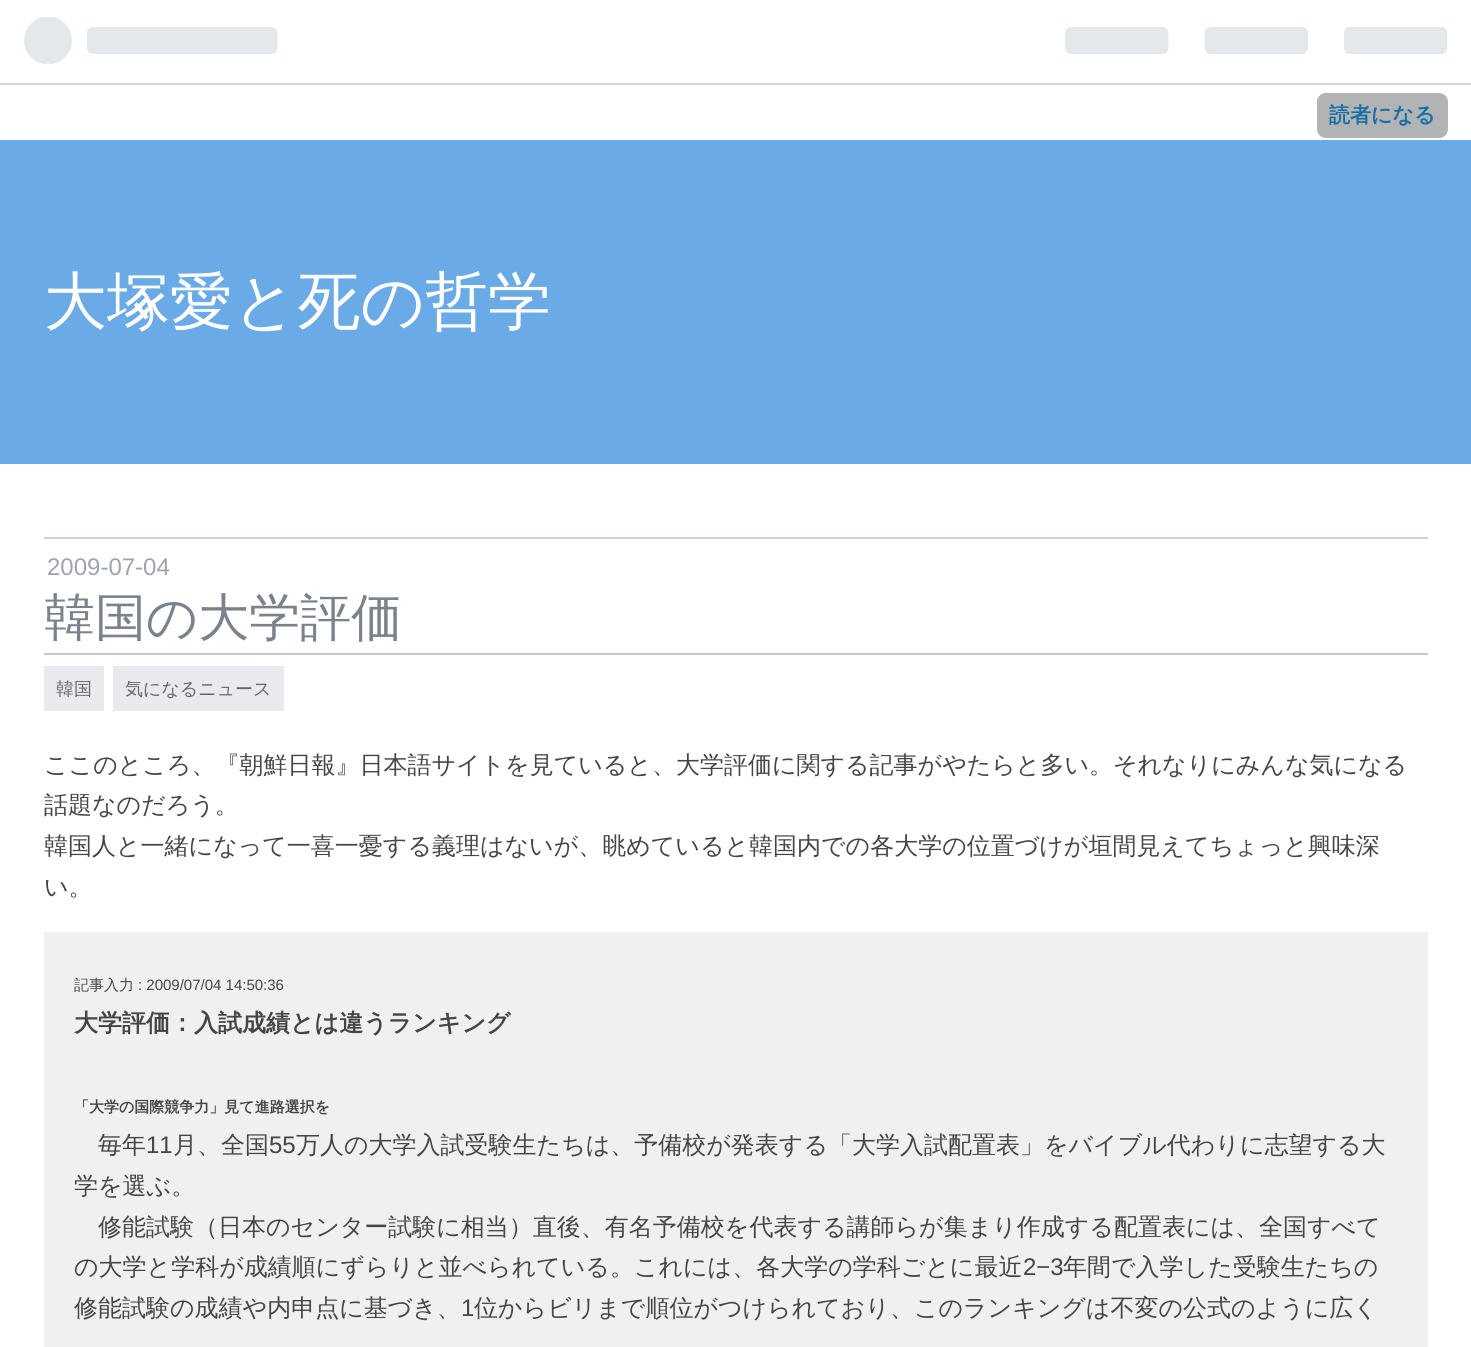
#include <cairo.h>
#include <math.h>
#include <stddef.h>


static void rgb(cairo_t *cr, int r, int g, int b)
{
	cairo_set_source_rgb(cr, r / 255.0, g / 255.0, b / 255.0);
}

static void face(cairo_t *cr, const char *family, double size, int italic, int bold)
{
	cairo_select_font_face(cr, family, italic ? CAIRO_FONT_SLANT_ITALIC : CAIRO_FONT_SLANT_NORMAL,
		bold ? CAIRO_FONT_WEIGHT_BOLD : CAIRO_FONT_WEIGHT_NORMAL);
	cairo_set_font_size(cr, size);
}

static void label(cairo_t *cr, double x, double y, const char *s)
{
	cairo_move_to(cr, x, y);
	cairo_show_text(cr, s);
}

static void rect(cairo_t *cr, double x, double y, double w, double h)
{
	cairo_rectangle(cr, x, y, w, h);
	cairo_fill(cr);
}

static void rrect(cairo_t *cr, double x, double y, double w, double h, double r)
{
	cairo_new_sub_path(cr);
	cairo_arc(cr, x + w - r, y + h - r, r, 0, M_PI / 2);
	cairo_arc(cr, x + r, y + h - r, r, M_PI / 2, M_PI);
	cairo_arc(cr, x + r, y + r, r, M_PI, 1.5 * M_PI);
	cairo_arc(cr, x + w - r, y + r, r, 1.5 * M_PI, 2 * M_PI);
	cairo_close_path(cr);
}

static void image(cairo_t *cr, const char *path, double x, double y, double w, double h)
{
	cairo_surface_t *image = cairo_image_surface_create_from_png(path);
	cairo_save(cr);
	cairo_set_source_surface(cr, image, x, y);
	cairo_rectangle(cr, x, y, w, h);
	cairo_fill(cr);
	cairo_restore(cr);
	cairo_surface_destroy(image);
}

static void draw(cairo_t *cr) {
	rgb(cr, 255, 255, 255);
	cairo_paint(cr);
	rgb(cr, 210, 216, 221);
	rect(cr, 0, 83, 1471, 2);
	image(cr, "image0.png", 24, 17, 254, 48);
	image(cr, "image1.png", 1065, 27, 383, 27);
	rgb(cr, 177, 179, 181);
	rrect(cr, 1317, 93, 131, 45, 9);
	cairo_fill(cr);
	face(cr, "WenQuanYi Zen Hei", 21, 0, 1);
	rgb(cr, 21, 112, 166);
	label(cr, 1329, 122, "読者になる");
	rgb(cr, 106, 170, 230);
	rect(cr, 0, 140, 1471, 324);
	face(cr, "WenQuanYi Zen Hei Medium", 63, 0, 0);
	rgb(cr, 255, 255, 255);
	label(cr, 44, 323, "大塚愛と死の哲学");
	rgb(cr, 204, 209, 226);
	rect(cr, 44, 537, 1384, 2);
	face(cr, "Liberation Sans", 24, 0, 0);
	rgb(cr, 158, 163, 175);
	label(cr, 47, 575, "2009-07-04");
	rgb(cr, 193, 198, 214);
	rect(cr, 44, 653, 1384, 2);
	face(cr, "WenQuanYi Zen Hei Medium", 51, 0, 0);
	rgb(cr, 124, 130, 140);
	label(cr, 44, 635, "韓国の大学評価");
	rgb(cr, 232, 234, 237);
	rect(cr, 44, 666, 60, 45);
	face(cr, "WenQuanYi Zen Hei Medium", 18, 0, 0);
	rgb(cr, 102, 102, 102);
	label(cr, 56, 695, "韓国");
	rgb(cr, 232, 234, 237);
	rect(cr, 113, 666, 171, 45);
	rgb(cr, 102, 102, 102);
	label(cr, 125, 695, "気になるニュース");
	face(cr, "WenQuanYi Zen Hei Medium", 24, 0, 0);
	rgb(cr, 69, 69, 69);
	label(cr, 44, 773, "ここのところ、『朝鮮日報』日本語サイトを見ていると、大学評価に関する記事がやたらと多い。それなりにみんな気になる");
	label(cr, 44, 813, "話題なのだろう。");
	label(cr, 44, 854, "韓国人と一緒になって一喜一憂する義理はないが、眺めていると韓国内での各大学の位置づけが垣間見えてちょっと興味深");
	label(cr, 44, 895, "い。");
	rgb(cr, 240, 240, 240);
	rect(cr, 44, 932, 1384, 415);
	face(cr, "WenQuanYi Zen Hei Medium", 15, 0, 0);
	rgb(cr, 69, 69, 69);
	label(cr, 74, 990, "記事入力");
	face(cr, "Liberation Sans", 15, 0, 0);
	label(cr, 138, 990, ": 2009/07/04 14:50:36");
	face(cr, "WenQuanYi Zen Hei", 24, 0, 1);
	label(cr, 74, 1031, "大学評価：入試成績とは違うランキング");
	face(cr, "WenQuanYi Zen Hei", 15, 0, 1);
	label(cr, 74, 1112, "「大学の国際競争力」見て進路選択を");
	face(cr, "WenQuanYi Zen Hei Medium", 24, 0, 0);
	label(cr, 98, 1153, "毎年");
	face(cr, "Liberation Sans", 24, 0, 0);
	label(cr, 146, 1153, "11");
	face(cr, "WenQuanYi Zen Hei Medium", 24, 0, 0);
	label(cr, 173, 1153, "月、全国");
	face(cr, "Liberation Sans", 24, 0, 0);
	label(cr, 269, 1153, "55");
	face(cr, "WenQuanYi Zen Hei Medium", 24, 0, 0);
	label(cr, 296, 1153, "万人の大学入試受験生たちは、予備校が発表する「大学入試配置表」をバイブル代わりに志望する大");
	label(cr, 74, 1194, "学を選ぶ。");
	label(cr, 98, 1235, "修能試験（日本のセンター試験に相当）直後、有名予備校を代表する講師らが集まり作成する配置表には、全国すべて");
	label(cr, 74, 1275, "の大学と学科が成績順にずらりと並べられている。これには、各大学の学科ごとに最近");
	face(cr, "Liberation Sans", 24, 0, 0);
	label(cr, 1023, 1275, "2−3");
	face(cr, "WenQuanYi Zen Hei Medium", 24, 0, 0);
	label(cr, 1063, 1275, "年間で入学した受験生たちの");
	label(cr, 74, 1316, "修能試験の成績や内申点に基づき、");
	face(cr, "Liberation Sans", 24, 0, 0);
	label(cr, 461, 1316, "1");
	face(cr, "WenQuanYi Zen Hei Medium", 24, 0, 0);
	label(cr, 474, 1316, "位からビリまで順位がつけられており、このランキングは不変の公式のように広く");
}

int main(void) {
	cairo_surface_t *surface = cairo_image_surface_create(CAIRO_FORMAT_RGB24, 1471, 1347);
	cairo_t *cr = cairo_create(surface);
	cairo_font_options_t *options = cairo_font_options_create();
	cairo_font_options_set_hint_metrics(options, CAIRO_HINT_METRICS_OFF);
	cairo_font_options_set_hint_style(options, CAIRO_HINT_STYLE_NONE);
	cairo_set_font_options(cr, options);
	cairo_set_miter_limit(cr, 4);
	draw(cr);
	cairo_surface_write_to_png(surface, "render.png");
	cairo_font_options_destroy(options);
	cairo_destroy(cr);
	cairo_surface_destroy(surface);
	return 0;
}
